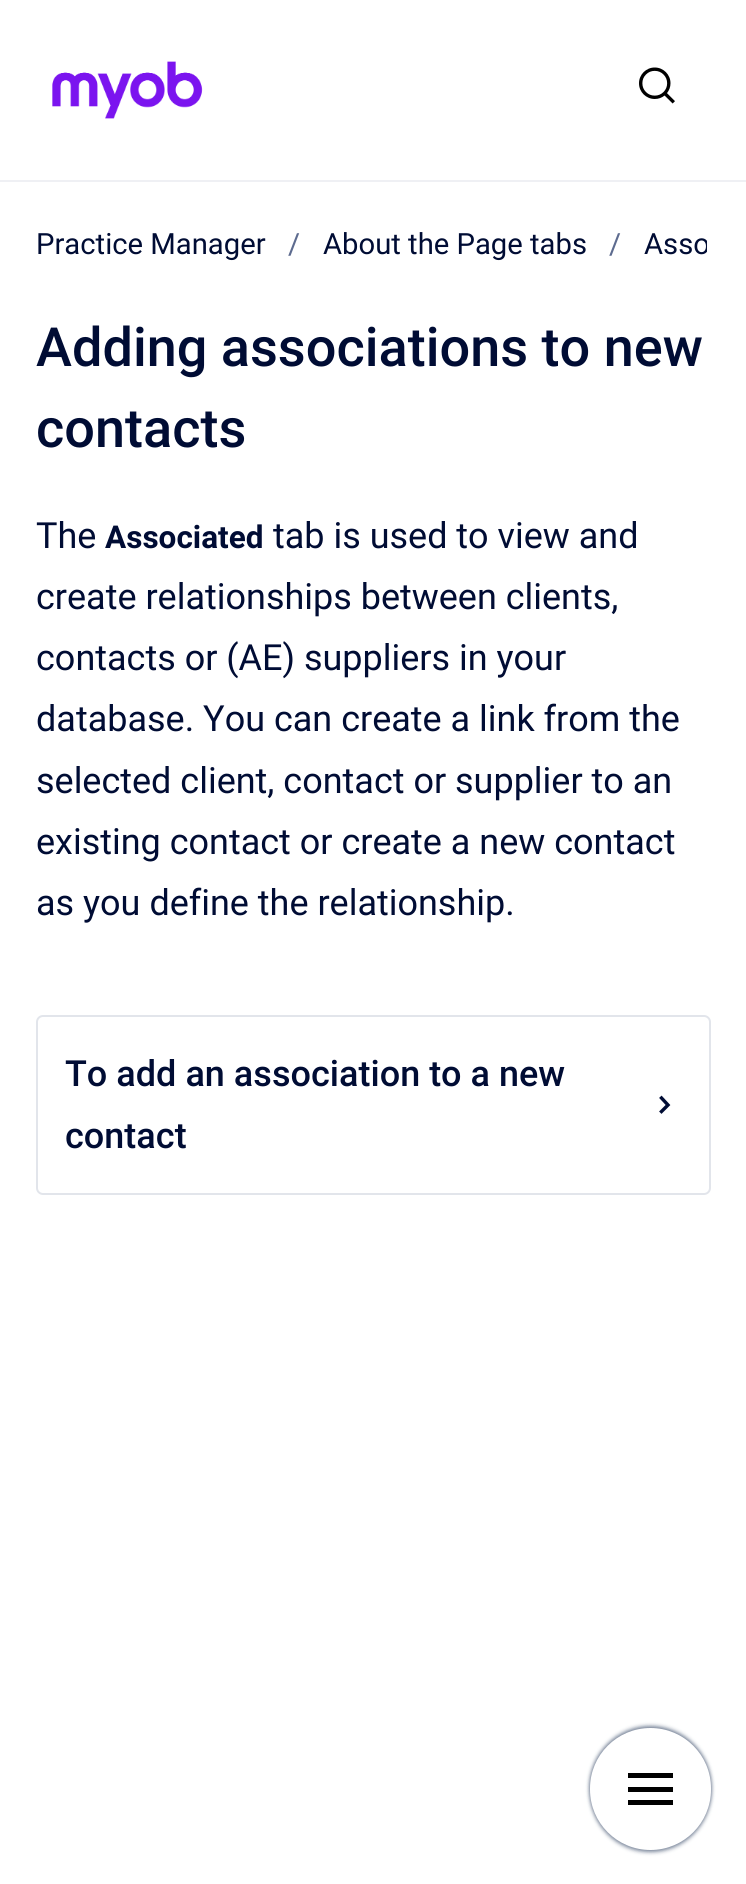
#include <cairo.h>
#include <math.h>
#include <stddef.h>


static void rgb(cairo_t *cr, int r, int g, int b)
{
	cairo_set_source_rgb(cr, r / 255.0, g / 255.0, b / 255.0);
}

static void face(cairo_t *cr, const char *family, double size, int italic, int bold)
{
	cairo_select_font_face(cr, family, italic ? CAIRO_FONT_SLANT_ITALIC : CAIRO_FONT_SLANT_NORMAL,
		bold ? CAIRO_FONT_WEIGHT_BOLD : CAIRO_FONT_WEIGHT_NORMAL);
	cairo_set_font_size(cr, size);
}

static void label(cairo_t *cr, double x, double y, const char *s)
{
	cairo_move_to(cr, x, y);
	cairo_show_text(cr, s);
}

static void rect(cairo_t *cr, double x, double y, double w, double h)
{
	cairo_rectangle(cr, x, y, w, h);
	cairo_fill(cr);
}

static void rrect(cairo_t *cr, double x, double y, double w, double h, double r)
{
	cairo_new_sub_path(cr);
	cairo_arc(cr, x + w - r, y + h - r, r, 0, M_PI / 2);
	cairo_arc(cr, x + r, y + h - r, r, M_PI / 2, M_PI);
	cairo_arc(cr, x + r, y + r, r, M_PI, 1.5 * M_PI);
	cairo_arc(cr, x + w - r, y + r, r, 1.5 * M_PI, 2 * M_PI);
	cairo_close_path(cr);
}

static void soft_shadow(cairo_t *cr, double x, double y, double w, double h, double r, double blur, double alpha)
{
	cairo_push_group_with_content(cr, CAIRO_CONTENT_ALPHA);
	cairo_set_operator(cr, CAIRO_OPERATOR_SOURCE);
	for (int i = 15; i >= -15 && fmin(w, h) + blur * i / 3 > 0; i -= 2) {
		double e = blur * i / 6;
		cairo_set_source_rgba(cr, 0, 0, 0, alpha * erfc((i - 1) / 8.5) / 2);
		rrect(cr, x - e, y - e, w + 2 * e, h + 2 * e, fmax(0, fmin(r + e + blur * .6, fmin(w, h) / 2 + e)));
		cairo_fill(cr);
	}
	cairo_pattern_t *soft = cairo_pop_group(cr);
	cairo_mask(cr, soft);
	cairo_pattern_destroy(soft);
}

static void image(cairo_t *cr, const char *path, double x, double y, double w, double h)
{
	cairo_surface_t *image = cairo_image_surface_create_from_png(path);
	cairo_save(cr);
	cairo_set_source_surface(cr, image, x, y);
	cairo_rectangle(cr, x, y, w, h);
	cairo_fill(cr);
	cairo_restore(cr);
	cairo_surface_destroy(image);
}

static void draw(cairo_t *cr) {
	rgb(cr, 255, 255, 255);
	cairo_paint(cr);
	rgb(cr, 239, 240, 244);
	rect(cr, 0, 180, 746, 2);
	image(cr, "image0.png", 52, 61, 151, 58);
	image(cr, "image1.png", 639, 67, 36, 37);
	face(cr, "Roboto", 29.25, 0, 0);
	rgb(cr, 0, 12, 52);
	label(cr, 36, 254, "Practice Manager");
	rgb(cr, 93, 107, 143);
	label(cr, 288, 254, "/");
	rgb(cr, 0, 12, 52);
	label(cr, 323, 254, "About the Page tabs");
	rgb(cr, 93, 107, 143);
	label(cr, 609, 254, "/");
	cairo_save(cr);
	cairo_rectangle(cr, 32, 218, 675, 54);
	cairo_clip(cr);
	rgb(cr, 0, 12, 52);
	label(cr, 644, 254, "Asso");
	cairo_restore(cr);
	face(cr, "Roboto Medium", 54, 0, 0);
	rgb(cr, 0, 12, 52);
	label(cr, 36, 366, "Adding associations to new");
	label(cr, 36, 447, "contacts");
	face(cr, "Roboto", 36, 0, 0);
	label(cr, 36, 548, "The");
	face(cr, "Roboto", 31.5, 0, 1);
	label(cr, 105, 548, "Associated");
	face(cr, "Roboto", 36, 0, 0);
	label(cr, 273, 548, "tab is used to view and");
	label(cr, 36, 609, "create relationships between clients,");
	label(cr, 36, 670, "contacts or (AE) suppliers in your");
	label(cr, 36, 731, "database. You can create a link from the");
	label(cr, 36, 793, "selected client, contact or supplier to an");
	label(cr, 36, 854, "existing contact or create a new contact");
	label(cr, 36, 915, "as you define the relationship.");
	rrect(cr, 37, 1016, 673, 178, 6);
	rgb(cr, 226, 229, 235);
	cairo_stroke(cr);
	face(cr, "Roboto Medium", 36, 0, 0);
	rgb(cr, 0, 12, 52);
	label(cr, 65, 1086, "To add an association to a new");
	cairo_new_path(cr);
	cairo_move_to(cr, 661.5, 1098);
	cairo_line_to(cr, 668, 1105);
	cairo_line_to(cr, 661.5, 1111.5);
	cairo_set_line_width(cr, 3.4);
	cairo_set_line_cap(cr, CAIRO_LINE_CAP_SQUARE);
	cairo_stroke(cr);
	label(cr, 65, 1148, "contact");
	rgb(cr, 122, 134, 154);
	soft_shadow(cr, 590, 1726, 121, 121, 60.5, 2, 1);
	soft_shadow(cr, 590, 1730, 121, 122, 60.5, 2, 1);
	rgb(cr, 255, 255, 255);
	rrect(cr, 590, 1728, 121, 122, 60.5);
	cairo_fill(cr);
	rgb(cr, 0, 0, 0);
	rect(cr, 628, 1773, 45, 5);
	rect(cr, 628, 1787, 45, 5);
	rect(cr, 628, 1800, 45, 5);
}

int main(void) {
	cairo_surface_t *surface = cairo_image_surface_create(CAIRO_FORMAT_RGB24, 746, 1884);
	cairo_t *cr = cairo_create(surface);
	cairo_font_options_t *options = cairo_font_options_create();
	cairo_font_options_set_hint_metrics(options, CAIRO_HINT_METRICS_OFF);
	cairo_font_options_set_hint_style(options, CAIRO_HINT_STYLE_NONE);
	cairo_set_font_options(cr, options);
	cairo_set_miter_limit(cr, 4);
	draw(cr);
	cairo_surface_write_to_png(surface, "render.png");
	cairo_font_options_destroy(options);
	cairo_destroy(cr);
	cairo_surface_destroy(surface);
	return 0;
}
